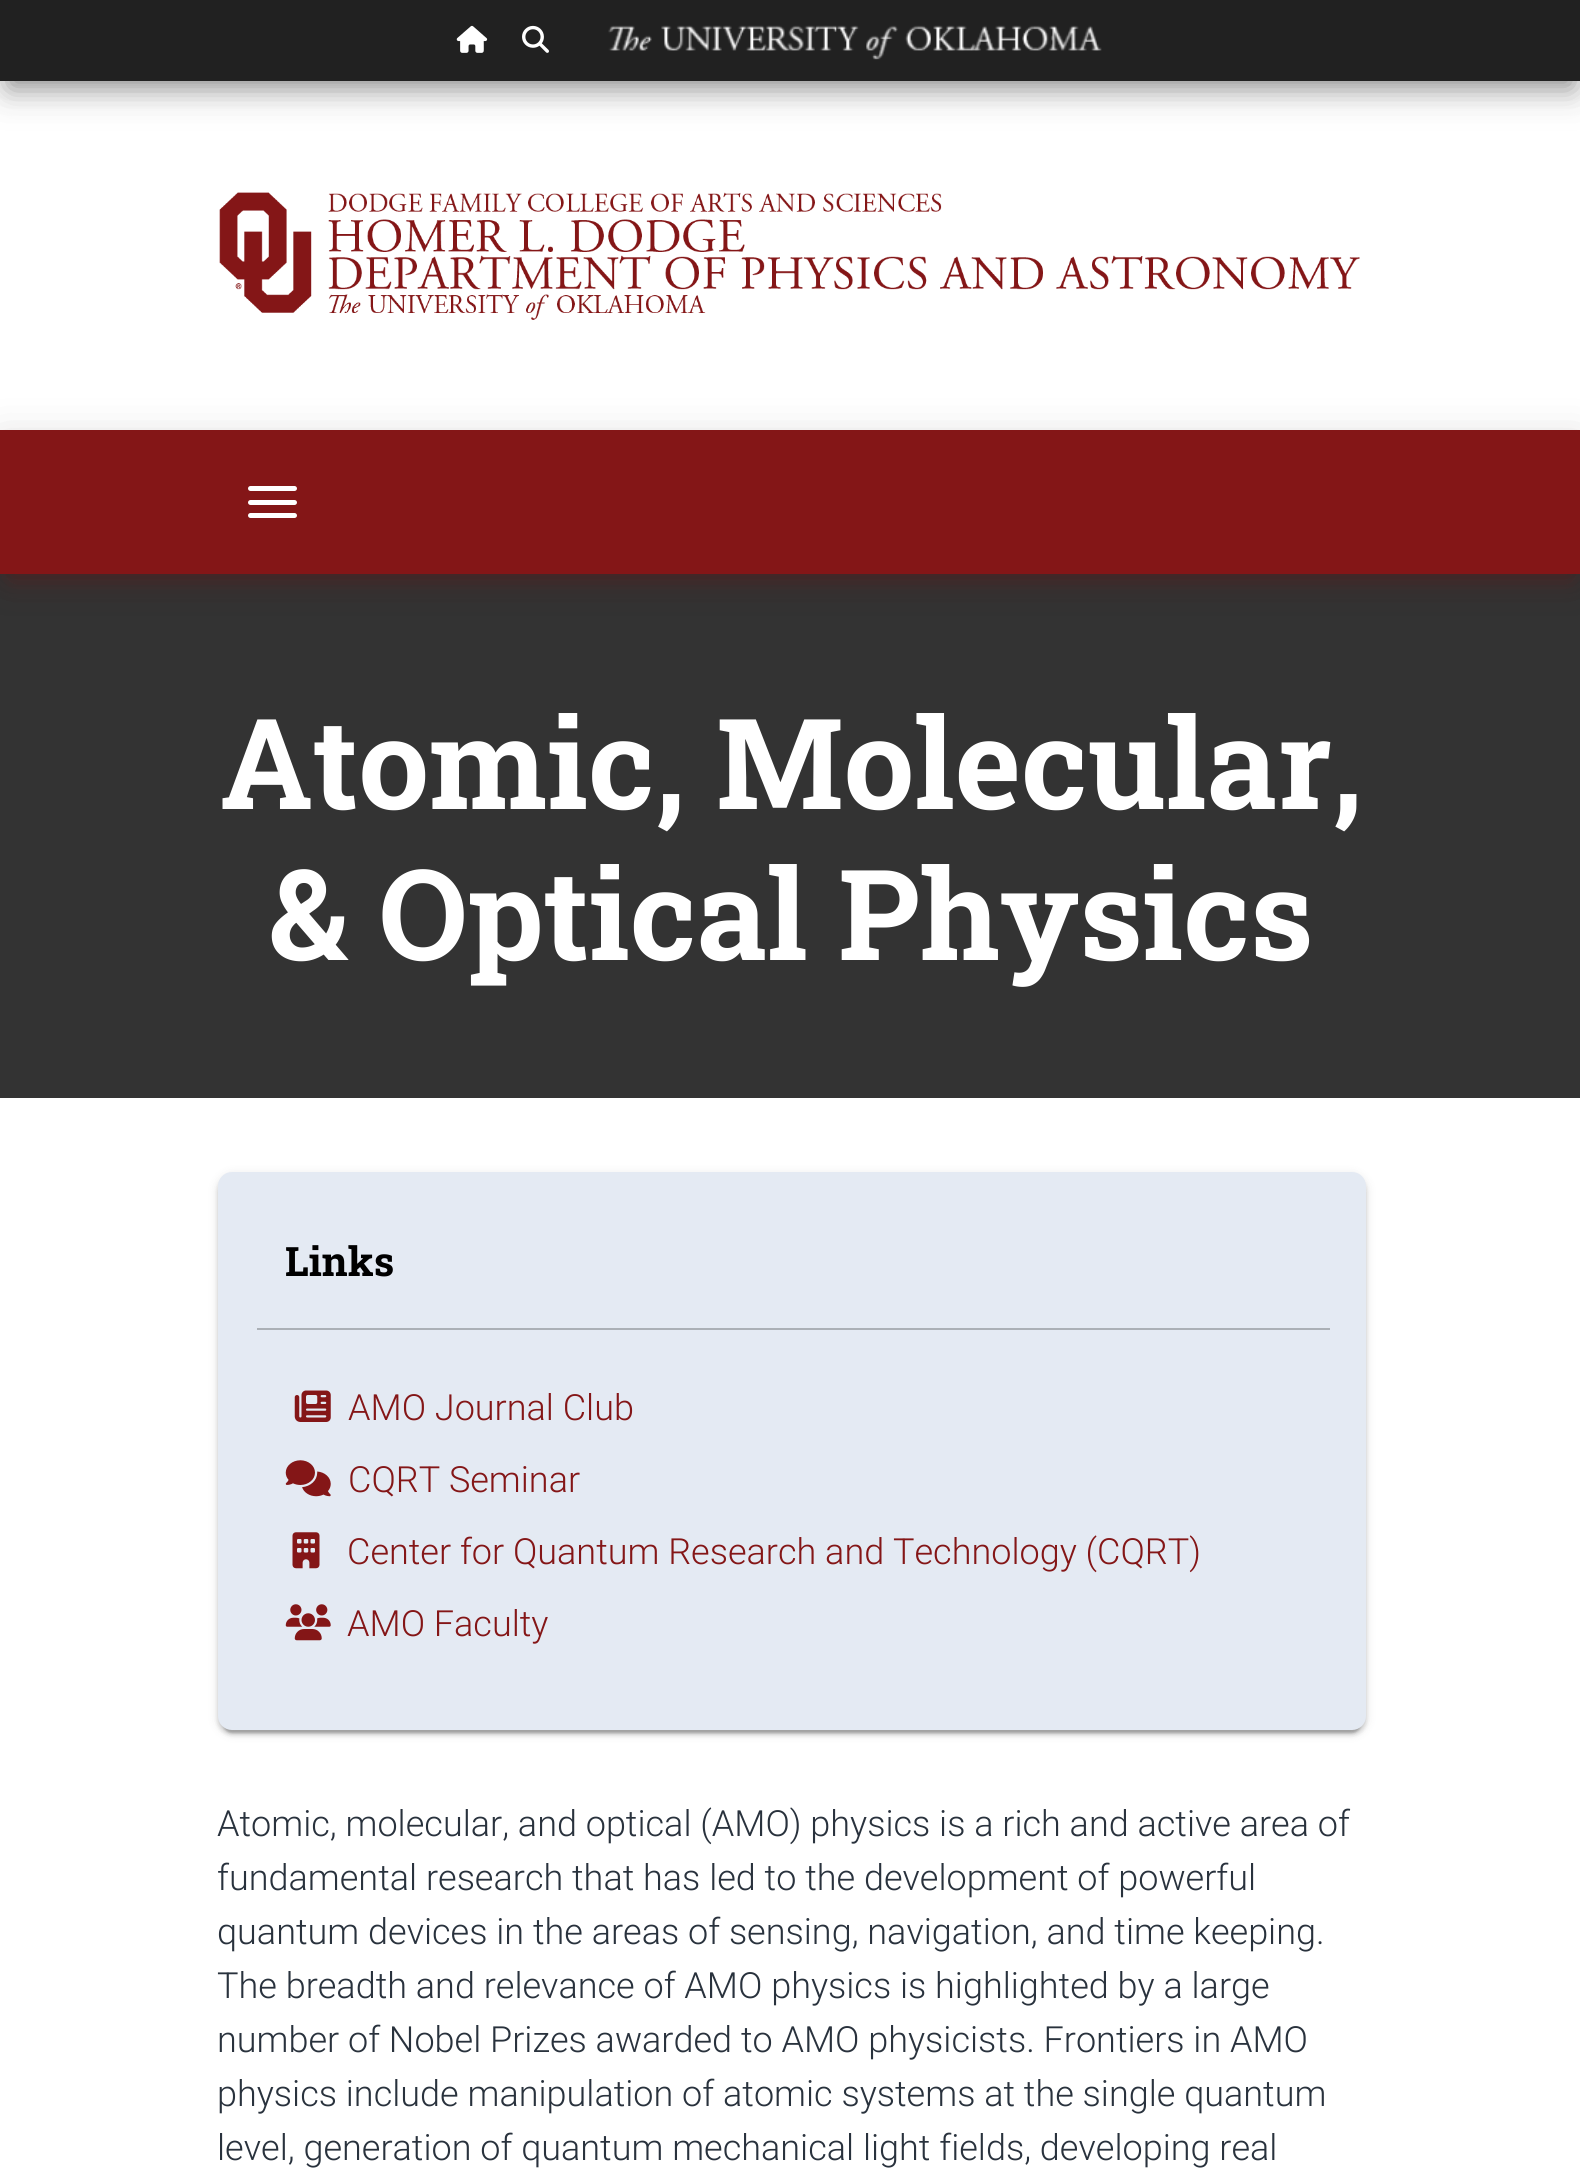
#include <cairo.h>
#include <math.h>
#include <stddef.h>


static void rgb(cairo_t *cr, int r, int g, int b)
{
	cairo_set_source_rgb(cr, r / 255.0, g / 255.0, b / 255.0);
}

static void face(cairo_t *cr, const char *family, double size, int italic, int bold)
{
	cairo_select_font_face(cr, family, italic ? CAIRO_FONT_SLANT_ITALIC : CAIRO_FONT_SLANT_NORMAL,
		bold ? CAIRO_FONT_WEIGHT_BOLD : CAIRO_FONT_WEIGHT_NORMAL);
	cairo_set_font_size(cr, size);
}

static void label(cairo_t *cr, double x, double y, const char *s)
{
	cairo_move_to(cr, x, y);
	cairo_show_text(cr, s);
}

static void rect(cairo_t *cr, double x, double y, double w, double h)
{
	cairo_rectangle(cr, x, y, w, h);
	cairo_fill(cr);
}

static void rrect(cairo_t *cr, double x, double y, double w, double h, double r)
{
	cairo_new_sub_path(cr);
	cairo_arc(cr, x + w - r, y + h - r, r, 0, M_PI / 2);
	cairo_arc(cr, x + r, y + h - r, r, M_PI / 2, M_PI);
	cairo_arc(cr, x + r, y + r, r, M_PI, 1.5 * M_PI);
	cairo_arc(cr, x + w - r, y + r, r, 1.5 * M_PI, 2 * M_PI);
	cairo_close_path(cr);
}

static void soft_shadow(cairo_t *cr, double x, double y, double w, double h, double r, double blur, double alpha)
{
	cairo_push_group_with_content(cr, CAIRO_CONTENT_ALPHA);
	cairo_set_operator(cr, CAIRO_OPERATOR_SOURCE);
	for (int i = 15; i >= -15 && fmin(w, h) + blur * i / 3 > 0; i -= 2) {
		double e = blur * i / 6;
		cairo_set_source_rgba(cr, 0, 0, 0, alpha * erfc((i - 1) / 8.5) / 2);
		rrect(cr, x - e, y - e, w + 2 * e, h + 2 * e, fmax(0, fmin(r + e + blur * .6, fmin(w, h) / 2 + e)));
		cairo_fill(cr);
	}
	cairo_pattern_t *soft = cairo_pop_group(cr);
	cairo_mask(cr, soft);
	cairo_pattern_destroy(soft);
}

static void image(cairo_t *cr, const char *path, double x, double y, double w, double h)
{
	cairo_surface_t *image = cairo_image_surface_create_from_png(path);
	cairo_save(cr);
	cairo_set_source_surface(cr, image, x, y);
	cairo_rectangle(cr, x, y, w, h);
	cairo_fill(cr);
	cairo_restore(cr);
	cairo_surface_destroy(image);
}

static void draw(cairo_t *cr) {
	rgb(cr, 255, 255, 255);
	cairo_paint(cr);
	rgb(cr, 33, 33, 33);
	soft_shadow(cr, 11, 27, 1560, 59, 0, 13.5, 0.46);
	rgb(cr, 0, 0, 0);
	soft_shadow(cr, 0, 9, 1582, 81, 0, 22.5, 0.14);
	rgb(cr, 33, 33, 33);
	rect(cr, 0, 0, 1580, 81);
	image(cr, "image0.png", 456, 25, 32, 28);
	image(cr, "image1.png", 522, 25, 27, 28);
	image(cr, "image2.png", 608, 25, 494, 35);
	image(cr, "image3.png", 219, 192, 1141, 128);
	rgb(cr, 51, 51, 51);
	rect(cr, 0, 574, 1580, 524);
	rgb(cr, 132, 22, 23);
	soft_shadow(cr, 11, 457, 1560, 121, 0, 13.5, 0.46);
	rgb(cr, 0, 0, 0);
	soft_shadow(cr, 0, 439, 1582, 144, 0, 22.5, 0.14);
	rgb(cr, 132, 22, 23);
	rect(cr, 0, 430, 1580, 144);
	rgb(cr, 255, 255, 255);
	rrect(cr, 248, 486, 49, 5, 2.5);
	cairo_fill(cr);
	rrect(cr, 248, 500, 49, 5, 2.5);
	cairo_fill(cr);
	rrect(cr, 248, 513, 49, 5, 2.5);
	cairo_fill(cr);
	face(cr, "Roboto Slab", 126, 0, 1);
	label(cr, 220, 809, "Atomic, Molecular,");
	label(cr, 269, 960, "& Optical Physics");
	rgb(cr, 0, 0, 0);
	soft_shadow(cr, 218, 1175, 1148, 558, 14, 5.5, 0.12);
	soft_shadow(cr, 223, 1184, 1138, 549, 9, 1, 0.2);
	soft_shadow(cr, 218, 1177, 1148, 558, 14, 2, 0.14);
	rgb(cr, 228, 234, 243);
	rrect(cr, 218, 1172, 1148, 558, 14);
	cairo_fill(cr);
	rgb(cr, 171, 176, 182);
	rect(cr, 257, 1328, 1073, 2);
	face(cr, "Roboto Slab", 40.5, 0, 1);
	rgb(cr, 0, 0, 0);
	label(cr, 285, 1276, "Links");
	image(cr, "image4.png", 294, 1390, 37, 32);
	face(cr, "Roboto Light", 36, 0, 0);
	rgb(cr, 132, 22, 23);
	label(cr, 348, 1420, "AMO Journal Club");
	image(cr, "image5.png", 285, 1460, 46, 37);
	label(cr, 348, 1492, "CQRT Seminar");
	image(cr, "image6.png", 292, 1532, 28, 37);
	label(cr, 347, 1564, "Center for Quantum Research and Technology (CQRT)");
	image(cr, "image7.png", 285, 1604, 46, 37);
	label(cr, 347, 1636, "AMO Faculty");
	rgb(cr, 41, 50, 61);
	label(cr, 217, 1836, "Atomic, molecular, and optical (AMO) physics is a rich and active area of");
	label(cr, 217, 1890, "fundamental research that has led to the development of powerful");
	label(cr, 217, 1944, "quantum devices in the areas of sensing, navigation, and time keeping.");
	label(cr, 217, 1998, "The breadth and relevance of AMO physics is highlighted by a large");
	label(cr, 217, 2052, "number of Nobel Prizes awarded to AMO physicists. Frontiers in AMO");
	label(cr, 217, 2106, "physics include manipulation of atomic systems at the single quantum");
	label(cr, 217, 2160, "level, generation of quantum mechanical light fields, developing real");
}

int main(void) {
	cairo_surface_t *surface = cairo_image_surface_create(CAIRO_FORMAT_RGB24, 1580, 2183);
	cairo_t *cr = cairo_create(surface);
	cairo_font_options_t *options = cairo_font_options_create();
	cairo_font_options_set_hint_metrics(options, CAIRO_HINT_METRICS_OFF);
	cairo_font_options_set_hint_style(options, CAIRO_HINT_STYLE_NONE);
	cairo_set_font_options(cr, options);
	cairo_set_miter_limit(cr, 4);
	draw(cr);
	cairo_surface_write_to_png(surface, "render.png");
	cairo_font_options_destroy(options);
	cairo_destroy(cr);
	cairo_surface_destroy(surface);
	return 0;
}
